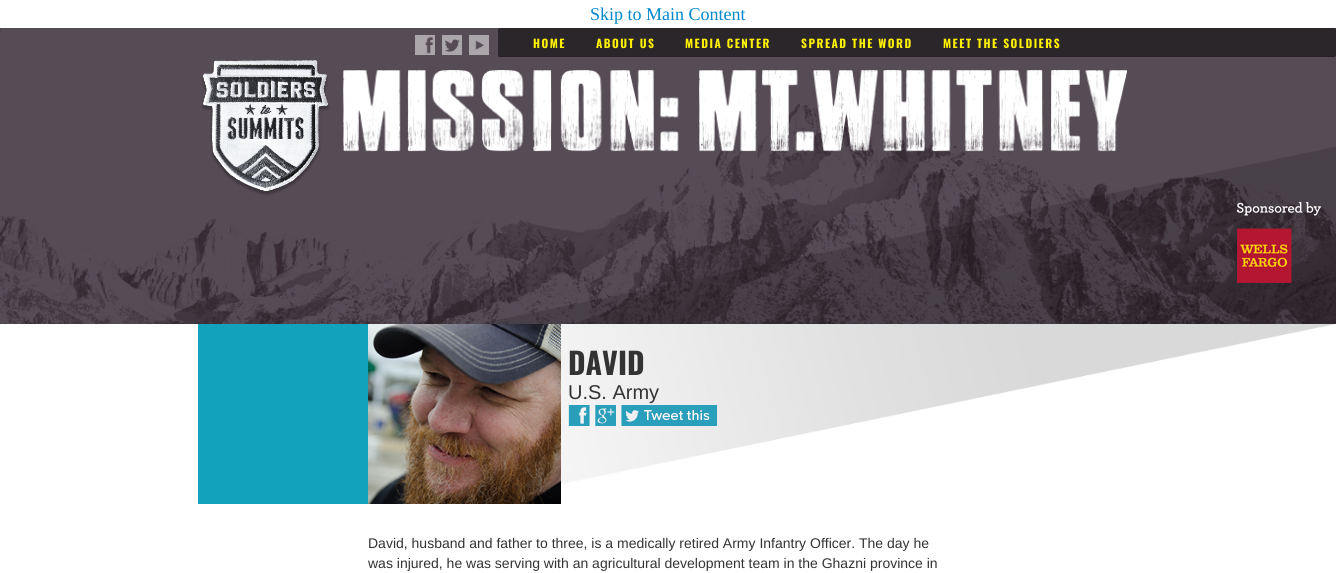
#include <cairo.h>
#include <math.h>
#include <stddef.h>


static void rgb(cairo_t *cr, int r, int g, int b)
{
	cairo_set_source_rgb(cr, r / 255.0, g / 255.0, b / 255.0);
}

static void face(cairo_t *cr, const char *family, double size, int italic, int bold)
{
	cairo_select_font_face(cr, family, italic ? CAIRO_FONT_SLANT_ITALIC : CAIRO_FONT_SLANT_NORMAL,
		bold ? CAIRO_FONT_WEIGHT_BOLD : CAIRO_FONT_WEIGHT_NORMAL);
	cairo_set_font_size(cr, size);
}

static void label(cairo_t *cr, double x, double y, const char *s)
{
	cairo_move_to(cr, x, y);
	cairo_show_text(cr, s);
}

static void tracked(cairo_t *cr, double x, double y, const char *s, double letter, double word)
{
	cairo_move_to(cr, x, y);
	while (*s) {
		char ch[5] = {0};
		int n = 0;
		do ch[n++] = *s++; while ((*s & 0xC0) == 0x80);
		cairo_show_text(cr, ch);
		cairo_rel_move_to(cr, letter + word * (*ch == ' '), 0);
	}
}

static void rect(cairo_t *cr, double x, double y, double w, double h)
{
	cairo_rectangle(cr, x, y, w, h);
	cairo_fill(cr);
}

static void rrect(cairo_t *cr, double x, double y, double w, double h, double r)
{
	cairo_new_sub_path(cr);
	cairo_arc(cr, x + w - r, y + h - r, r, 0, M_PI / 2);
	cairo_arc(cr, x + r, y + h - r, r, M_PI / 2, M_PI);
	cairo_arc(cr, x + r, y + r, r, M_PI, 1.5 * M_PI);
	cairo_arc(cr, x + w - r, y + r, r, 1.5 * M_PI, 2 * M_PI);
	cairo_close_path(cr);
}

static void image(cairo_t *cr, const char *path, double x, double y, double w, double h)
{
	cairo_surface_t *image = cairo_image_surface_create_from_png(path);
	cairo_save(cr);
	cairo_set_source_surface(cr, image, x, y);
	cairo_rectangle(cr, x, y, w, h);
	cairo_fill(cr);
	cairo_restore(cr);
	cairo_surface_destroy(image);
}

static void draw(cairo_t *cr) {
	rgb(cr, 255, 255, 255);
	cairo_paint(cr);
	face(cr, "Liberation Serif", 18, 0, 0);
	rgb(cr, 0, 136, 204);
	label(cr, 590, 20, "Skip to Main Content");
	image(cr, "image0.png", 0, 28, 1336, 296);
	image(cr, "image1.png", 1237, 202, 84, 81);
	rgb(cr, 43, 38, 42);
	rrect(cr, 498, 28, 838, 29, 2);
	cairo_fill(cr);
	cairo_set_source_rgba(cr, 0, 0, 0, 0.1);
	cairo_new_path(cr);
	cairo_move_to(cr, 498, 54);
	cairo_curve_to(cr, 498, 55, 498, 57, 500, 57);
	cairo_line_to(cr, 1334, 57);
	cairo_curve_to(cr, 1336, 57, 1336, 55, 1336, 54);
	cairo_curve_to(cr, 1336, 55, 1335, 56, 1334, 56);
	cairo_line_to(cr, 500, 56);
	cairo_curve_to(cr, 499, 56, 498, 55, 498, 54);
	cairo_close_path(cr);
	cairo_fill(cr);
	image(cr, "image2.png", 415, 35, 20, 20);
	image(cr, "image3.png", 442, 35, 20, 20);
	image(cr, "image4.png", 469, 35, 20, 20);
	face(cr, "Oswald", 11.5, 0, 1);
	rgb(cr, 255, 242, 0);
	tracked(cr, 533, 48, "HOME", 1.5, 0);
	tracked(cr, 596, 48, "ABOUT US", 1.5, 0);
	tracked(cr, 685, 48, "MEDIA CENTER", 1.5, 0);
	tracked(cr, 801, 48, "SPREAD THE WORD", 1.5, 0);
	tracked(cr, 943, 48, "MEET THE SOLDIERS", 1.5, 0);
	image(cr, "image5.png", 201, 60, 129, 136);
	image(cr, "image6.png", 343, 70, 784, 82);
	image(cr, "image7.png", 561, 324, 774, 178);
	rgb(cr, 19, 162, 188);
	rect(cr, 198, 324, 170, 180);
	image(cr, "image8.png", 368, 324, 193, 180);
	face(cr, "Oswald", 30, 0, 1);
	rgb(cr, 51, 51, 51);
	label(cr, 568, 375, "DAVID");
	face(cr, "Liberation Sans", 20, 0, 0);
	label(cr, 568, 399, "U.S. Army");
	image(cr, "image9.png", 568, 405, 22, 21);
	image(cr, "image10.png", 595, 405, 21, 21);
	image(cr, "image11.png", 621, 405, 96, 21);
	face(cr, "Liberation Sans", 14, 0, 0);
	label(cr, 368, 548, "David, husband and father to three, is a medically retired Army Infantry Officer. The day he");
	label(cr, 368, 568, "was injured, he was serving with an agricultural development team in the Ghazni province in");
}

int main(void) {
	cairo_surface_t *surface = cairo_image_surface_create(CAIRO_FORMAT_RGB24, 1336, 573);
	cairo_t *cr = cairo_create(surface);
	cairo_font_options_t *options = cairo_font_options_create();
	cairo_font_options_set_hint_metrics(options, CAIRO_HINT_METRICS_OFF);
	cairo_font_options_set_hint_style(options, CAIRO_HINT_STYLE_NONE);
	cairo_set_font_options(cr, options);
	cairo_set_miter_limit(cr, 4);
	draw(cr);
	cairo_surface_write_to_png(surface, "render.png");
	cairo_font_options_destroy(options);
	cairo_destroy(cr);
	cairo_surface_destroy(surface);
	return 0;
}
